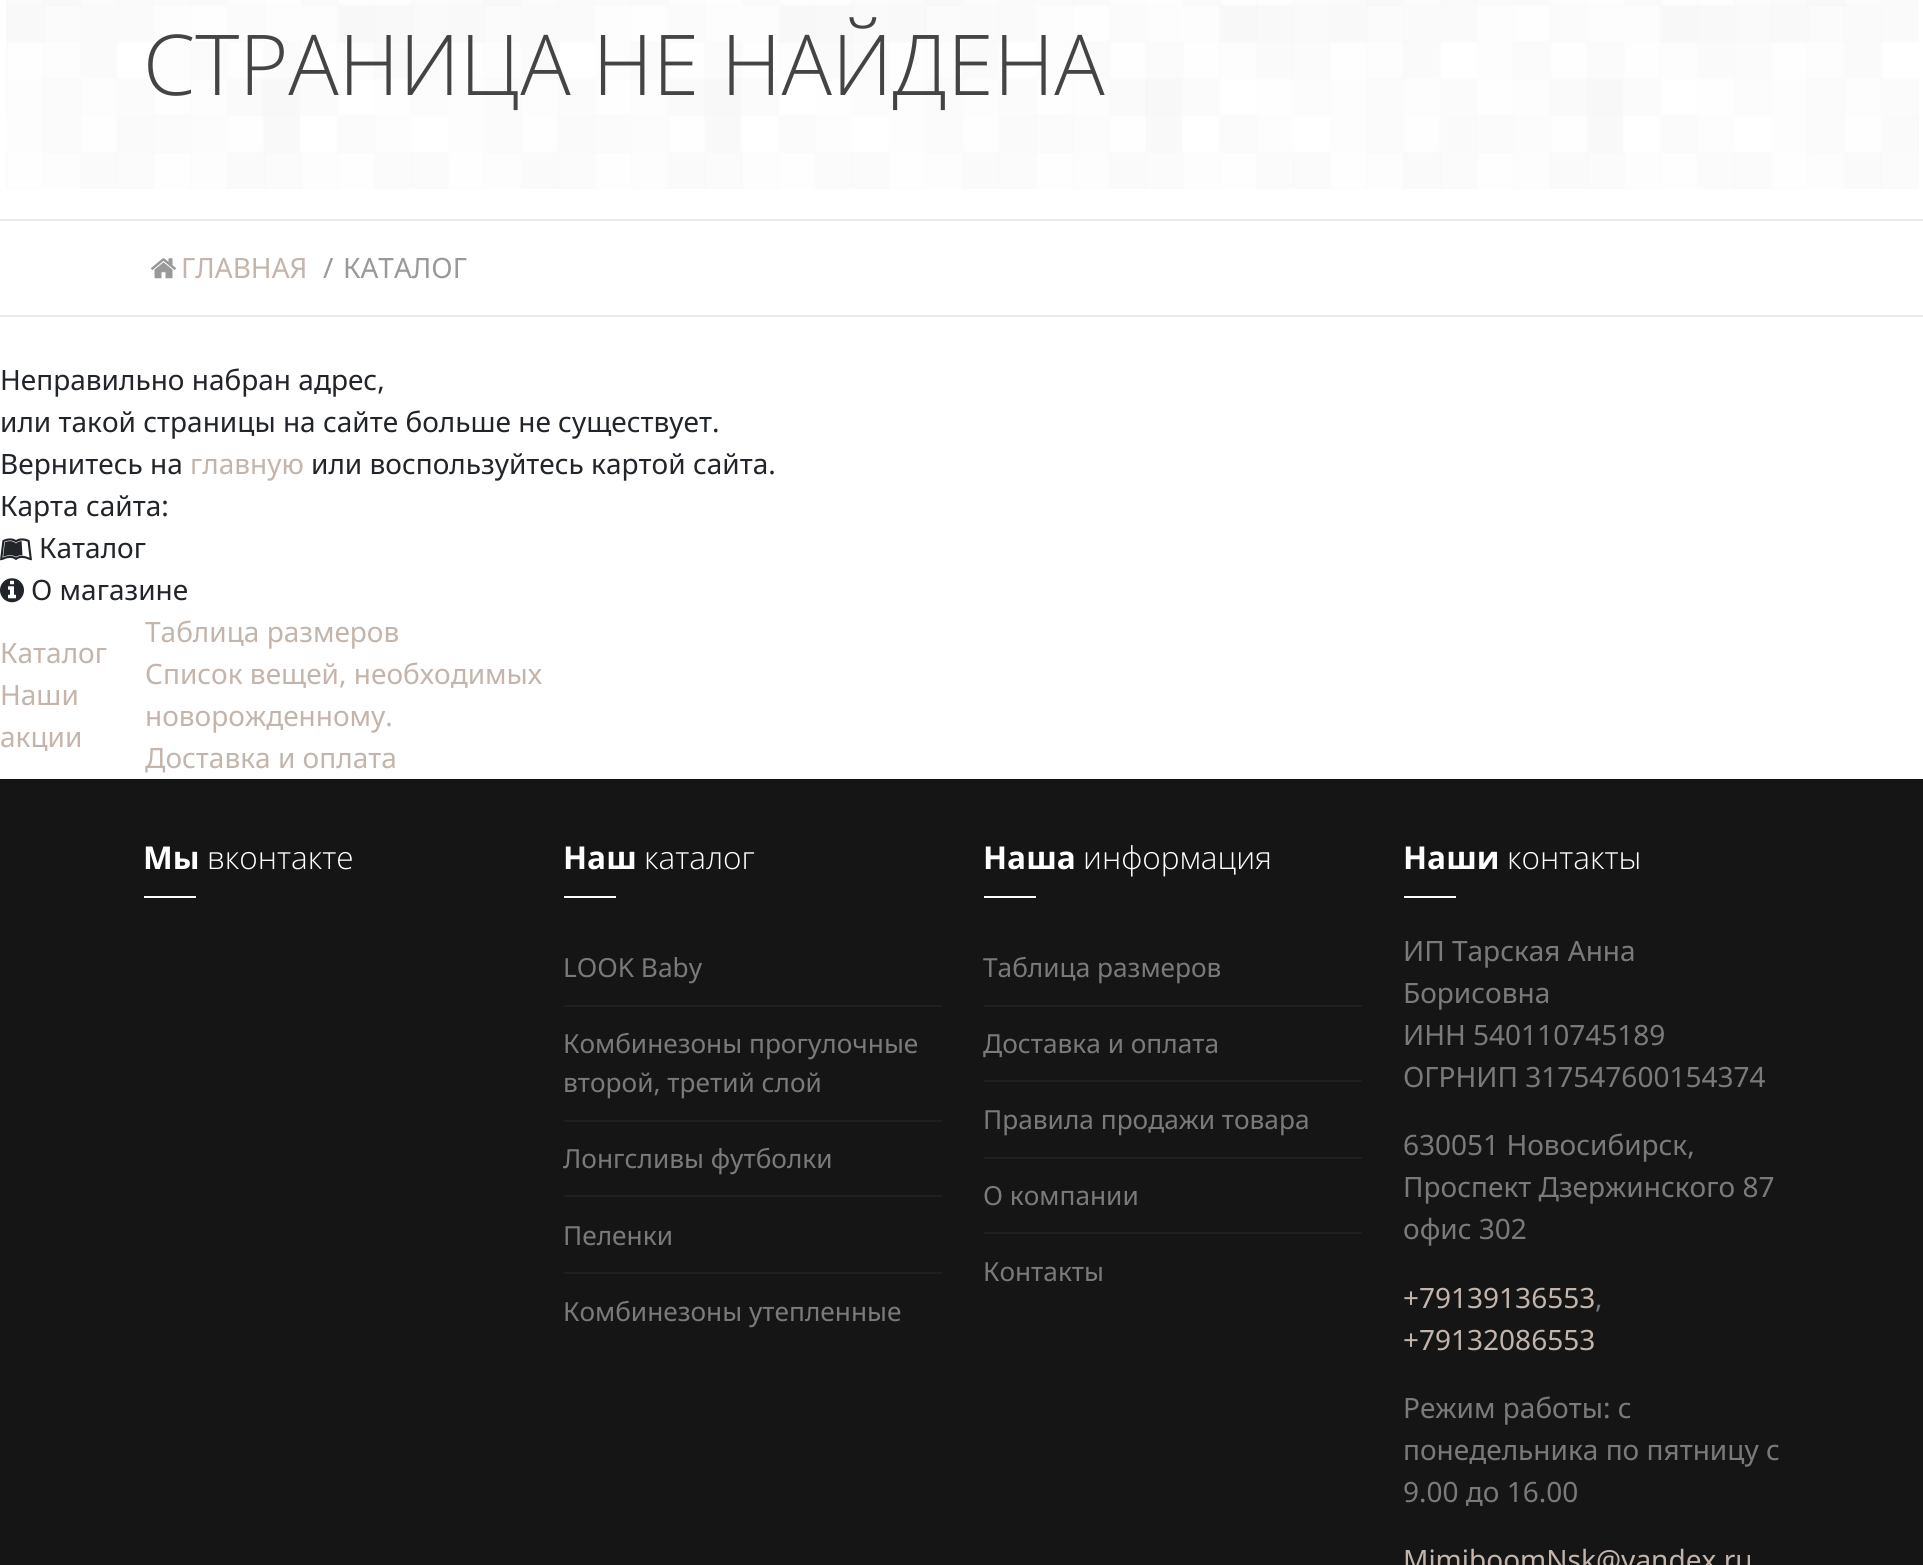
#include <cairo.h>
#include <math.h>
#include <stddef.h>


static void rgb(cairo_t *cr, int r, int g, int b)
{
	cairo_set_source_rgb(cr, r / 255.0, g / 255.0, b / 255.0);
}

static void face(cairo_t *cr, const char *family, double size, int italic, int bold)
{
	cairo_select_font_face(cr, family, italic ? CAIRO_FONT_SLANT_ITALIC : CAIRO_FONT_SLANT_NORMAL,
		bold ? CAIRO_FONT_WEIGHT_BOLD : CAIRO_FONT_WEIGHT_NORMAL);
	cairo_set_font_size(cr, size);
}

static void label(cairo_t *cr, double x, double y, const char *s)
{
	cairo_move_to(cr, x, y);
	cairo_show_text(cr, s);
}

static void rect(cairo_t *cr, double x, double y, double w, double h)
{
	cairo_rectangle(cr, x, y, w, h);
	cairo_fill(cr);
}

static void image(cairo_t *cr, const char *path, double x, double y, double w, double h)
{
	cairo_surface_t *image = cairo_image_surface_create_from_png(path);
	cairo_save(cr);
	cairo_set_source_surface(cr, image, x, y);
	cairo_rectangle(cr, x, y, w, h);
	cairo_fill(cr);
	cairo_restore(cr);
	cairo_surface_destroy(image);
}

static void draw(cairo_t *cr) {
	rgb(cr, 255, 255, 255);
	cairo_paint(cr);
	image(cr, "image0.png", 6, 0, 1913, 189);
	rgb(cr, 235, 235, 235);
	rect(cr, 0, 219, 1923, 2);
	face(cr, "Open Sans Light", 84, 0, 0);
	rgb(cr, 68, 68, 68);
	label(cr, 143, 95, "СТРАНИЦА НЕ НАЙДЕНА");
	rgb(cr, 235, 235, 235);
	rect(cr, 0, 315, 1923, 2);
	image(cr, "image1.png", 151, 258, 25, 21);
	face(cr, "Noto Sans", 28, 0, 0);
	rgb(cr, 195, 181, 172);
	label(cr, 181, 278, "ГЛАВНАЯ");
	rgb(cr, 153, 153, 153);
	label(cr, 323, 278, "/");
	label(cr, 343, 278, "КАТАЛОГ");
	rgb(cr, 33, 37, 41);
	label(cr, 0, 390, "Неправильно набран адрес,");
	label(cr, 0, 432, "или такой страницы на сайте больше не существует.");
	label(cr, 0, 474, "Вернитесь на");
	rgb(cr, 195, 181, 172);
	label(cr, 190, 474, "главную");
	rgb(cr, 33, 37, 41);
	label(cr, 311, 474, "или воспользуйтесь картой сайта.");
	label(cr, 0, 516, "Карта сайта:");
	image(cr, "image2.png", 0, 538, 32, 23);
	label(cr, 39, 558, "Каталог");
	image(cr, "image3.png", 0, 578, 24, 25);
	label(cr, 31, 600, "О магазине");
	rgb(cr, 195, 181, 172);
	label(cr, 0, 663, "Каталог");
	label(cr, 0, 705, "Наши");
	label(cr, 0, 747, "акции");
	label(cr, 145, 642, "Таблица размеров");
	label(cr, 145, 684, "Список вещей, необходимых");
	label(cr, 145, 726, "новорожденному.");
	label(cr, 145, 768, "Доставка и оплата");
	rgb(cr, 21, 21, 21);
	rect(cr, 0, 779, 1923, 786);
	face(cr, "Open Sans", 31.5, 0, 1);
	rgb(cr, 255, 255, 255);
	label(cr, 143, 869, "Мы");
	face(cr, "Open Sans Light", 31.5, 0, 0);
	label(cr, 207, 869, "вконтакте");
	rect(cr, 144, 896, 52, 2);
	face(cr, "Open Sans", 31.5, 0, 1);
	label(cr, 563, 869, "Наш");
	face(cr, "Open Sans Light", 31.5, 0, 0);
	label(cr, 644, 869, "каталог");
	rect(cr, 564, 896, 52, 2);
	rgb(cr, 31, 31, 31);
	rect(cr, 564, 1005, 378, 2);
	face(cr, "Noto Sans", 26.25, 0, 0);
	rgb(cr, 122, 122, 122);
	label(cr, 563, 977, "LOOK Baby");
	rgb(cr, 31, 31, 31);
	rect(cr, 564, 1120, 378, 2);
	rgb(cr, 122, 122, 122);
	label(cr, 563, 1053, "Комбинезоны прогулочные");
	label(cr, 563, 1092, "второй, третий слой");
	rgb(cr, 31, 31, 31);
	rect(cr, 564, 1195, 378, 2);
	rgb(cr, 122, 122, 122);
	label(cr, 563, 1168, "Лонгсливы футболки");
	rgb(cr, 31, 31, 31);
	rect(cr, 564, 1272, 378, 2);
	rgb(cr, 122, 122, 122);
	label(cr, 563, 1245, "Пеленки");
	label(cr, 563, 1321, "Комбинезоны утепленные");
	face(cr, "Open Sans", 31.5, 0, 1);
	rgb(cr, 255, 255, 255);
	label(cr, 983, 869, "Наша");
	face(cr, "Open Sans Light", 31.5, 0, 0);
	label(cr, 1083, 869, "информация");
	rect(cr, 984, 896, 52, 2);
	rgb(cr, 31, 31, 31);
	rect(cr, 984, 1005, 378, 2);
	face(cr, "Noto Sans", 26.25, 0, 0);
	rgb(cr, 122, 122, 122);
	label(cr, 983, 977, "Таблица размеров");
	rgb(cr, 31, 31, 31);
	rect(cr, 984, 1080, 378, 2);
	rgb(cr, 122, 122, 122);
	label(cr, 983, 1053, "Доставка и оплата");
	rgb(cr, 31, 31, 31);
	rect(cr, 984, 1157, 378, 2);
	rgb(cr, 122, 122, 122);
	label(cr, 983, 1129, "Правила продажи товара");
	rgb(cr, 31, 31, 31);
	rect(cr, 984, 1232, 378, 2);
	rgb(cr, 122, 122, 122);
	label(cr, 983, 1205, "О компании");
	label(cr, 983, 1281, "Контакты");
	face(cr, "Open Sans", 31.5, 0, 1);
	rgb(cr, 255, 255, 255);
	label(cr, 1403, 869, "Наши");
	face(cr, "Open Sans Light", 31.5, 0, 0);
	label(cr, 1507, 869, "контакты");
	rect(cr, 1404, 896, 52, 2);
	face(cr, "Noto Sans", 28, 0, 0);
	rgb(cr, 122, 122, 122);
	label(cr, 1403, 961, "ИП Тарская Анна");
	label(cr, 1403, 1003, "Борисовна");
	label(cr, 1403, 1045, "ИНН 540110745189");
	label(cr, 1403, 1087, "ОГРНИП 317547600154374");
	label(cr, 1403, 1155, "630051 Новосибирск,");
	label(cr, 1403, 1197, "Проспект Дзержинского 87");
	label(cr, 1403, 1239, "офис 302");
	rgb(cr, 195, 181, 172);
	label(cr, 1403, 1308, "+79139136553");
	rgb(cr, 122, 122, 122);
	label(cr, 1595, 1308, ",");
	rgb(cr, 195, 181, 172);
	label(cr, 1403, 1350, "+79132086553");
	rgb(cr, 122, 122, 122);
	label(cr, 1403, 1418, "Режим работы: с");
	label(cr, 1403, 1460, "понедельника по пятницу с");
	label(cr, 1403, 1502, "9.00 до 16.00");
	rgb(cr, 195, 181, 172);
	label(cr, 1403, 1570, "MimiboomNsk@yandex.ru");
}

int main(void) {
	cairo_surface_t *surface = cairo_image_surface_create(CAIRO_FORMAT_RGB24, 1923, 1565);
	cairo_t *cr = cairo_create(surface);
	cairo_font_options_t *options = cairo_font_options_create();
	cairo_font_options_set_hint_metrics(options, CAIRO_HINT_METRICS_OFF);
	cairo_font_options_set_hint_style(options, CAIRO_HINT_STYLE_NONE);
	cairo_set_font_options(cr, options);
	cairo_set_miter_limit(cr, 4);
	draw(cr);
	cairo_surface_write_to_png(surface, "render.png");
	cairo_font_options_destroy(options);
	cairo_destroy(cr);
	cairo_surface_destroy(surface);
	return 0;
}
